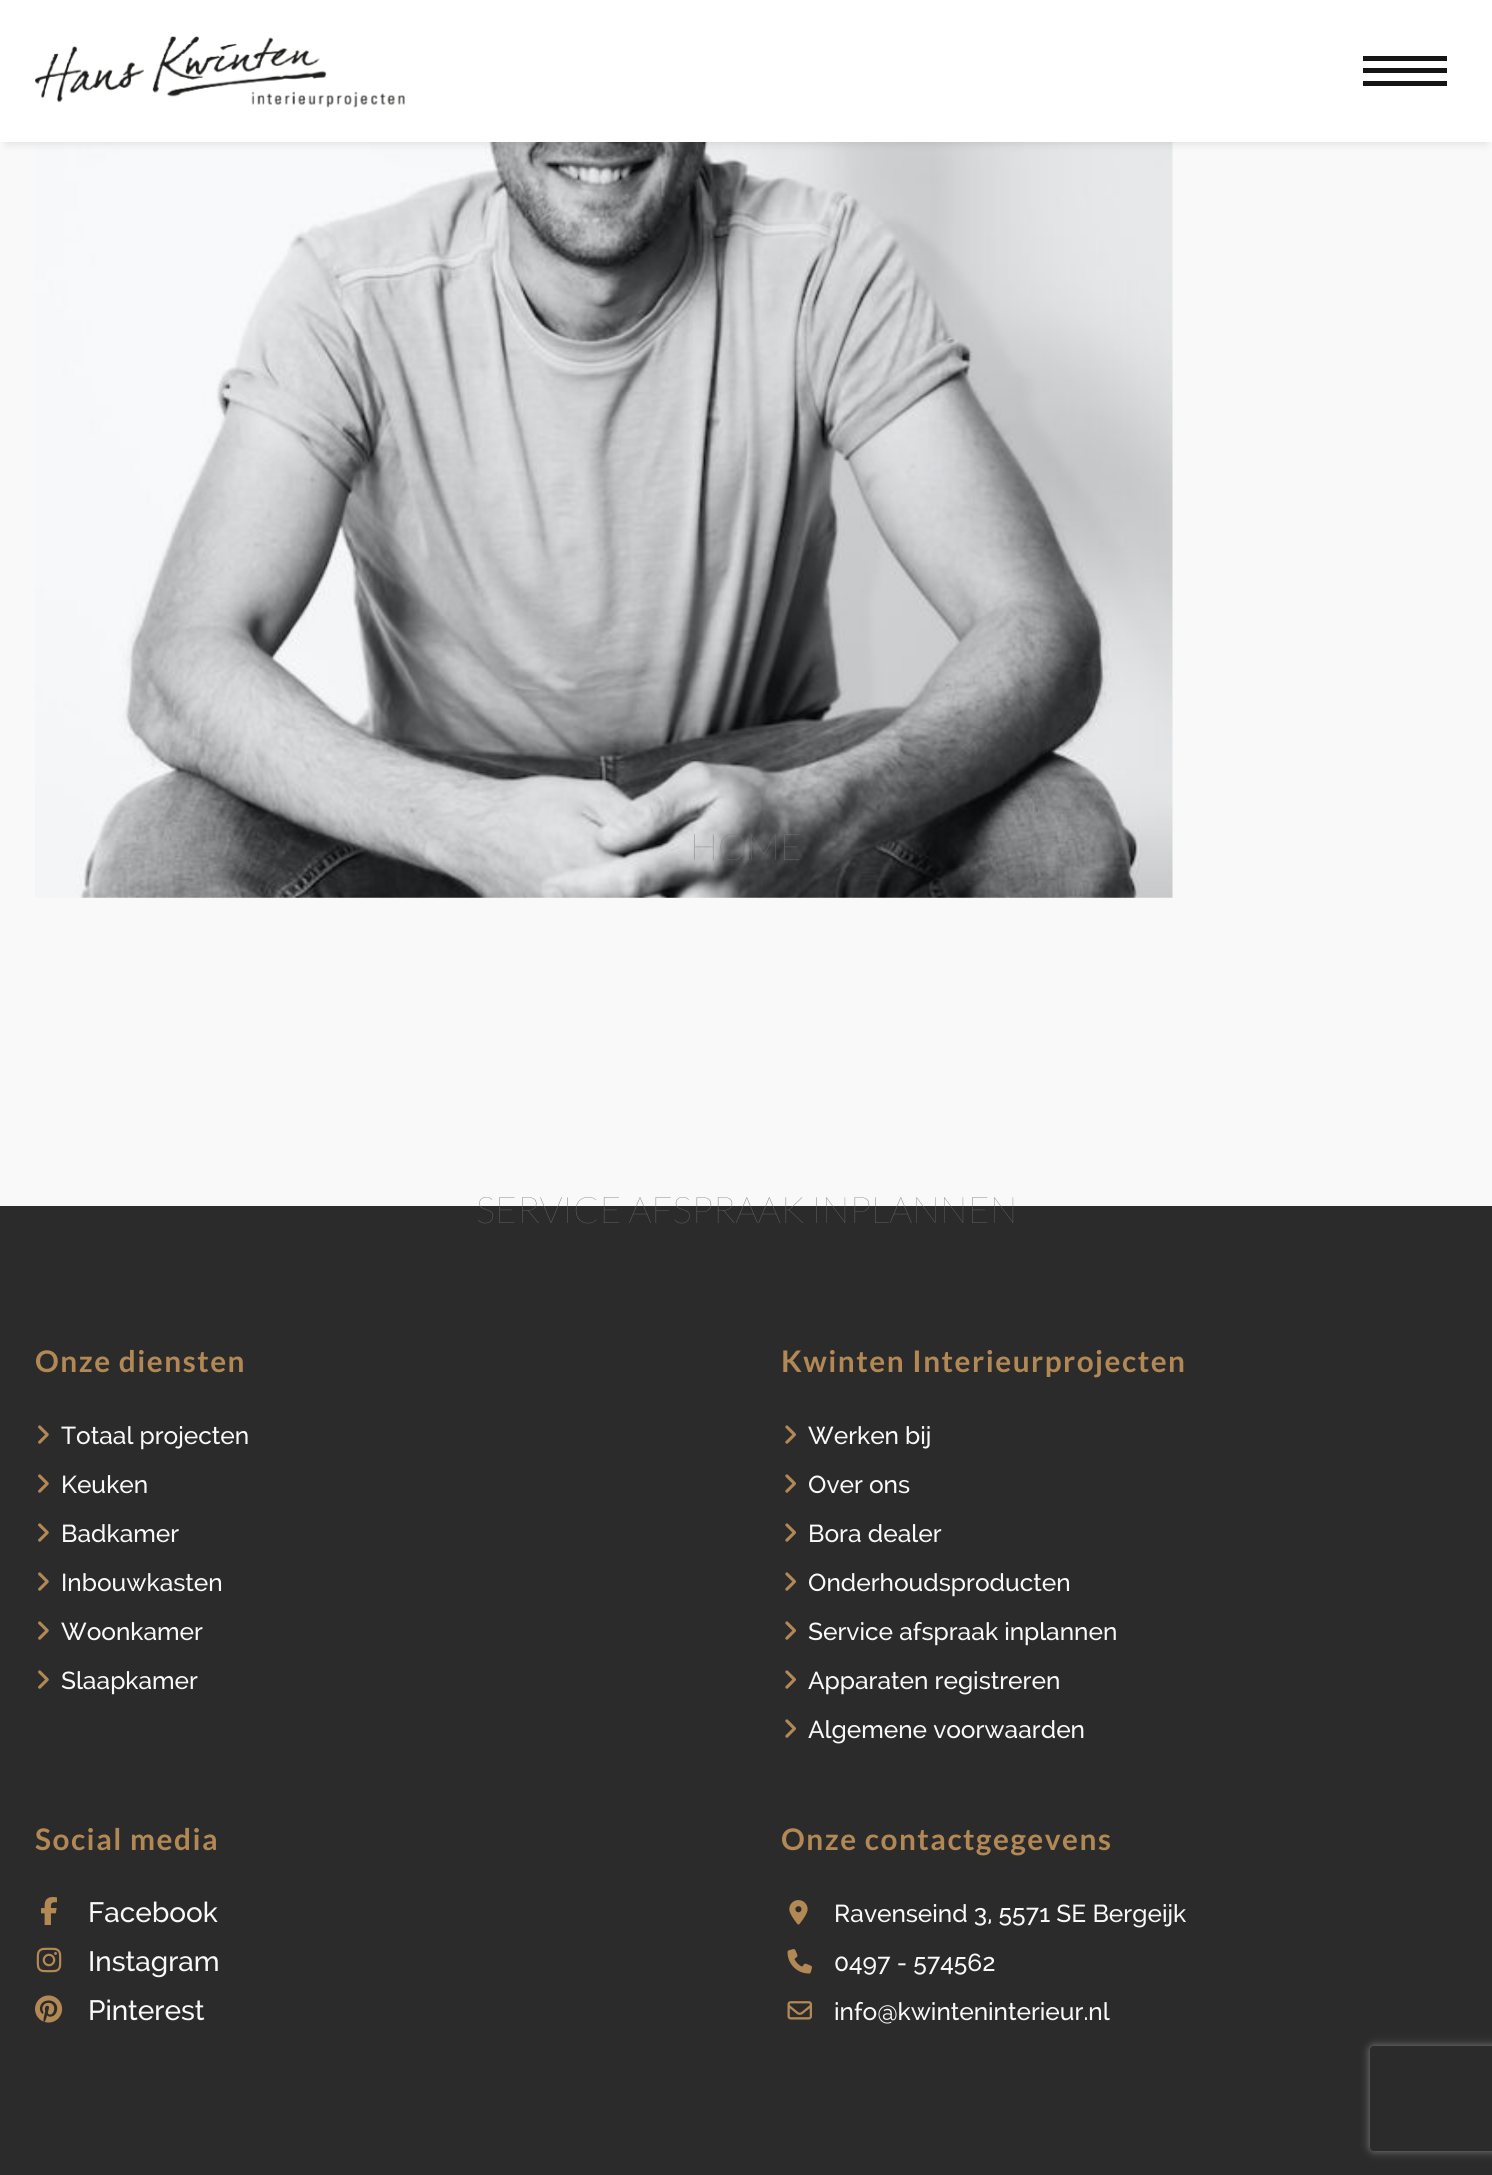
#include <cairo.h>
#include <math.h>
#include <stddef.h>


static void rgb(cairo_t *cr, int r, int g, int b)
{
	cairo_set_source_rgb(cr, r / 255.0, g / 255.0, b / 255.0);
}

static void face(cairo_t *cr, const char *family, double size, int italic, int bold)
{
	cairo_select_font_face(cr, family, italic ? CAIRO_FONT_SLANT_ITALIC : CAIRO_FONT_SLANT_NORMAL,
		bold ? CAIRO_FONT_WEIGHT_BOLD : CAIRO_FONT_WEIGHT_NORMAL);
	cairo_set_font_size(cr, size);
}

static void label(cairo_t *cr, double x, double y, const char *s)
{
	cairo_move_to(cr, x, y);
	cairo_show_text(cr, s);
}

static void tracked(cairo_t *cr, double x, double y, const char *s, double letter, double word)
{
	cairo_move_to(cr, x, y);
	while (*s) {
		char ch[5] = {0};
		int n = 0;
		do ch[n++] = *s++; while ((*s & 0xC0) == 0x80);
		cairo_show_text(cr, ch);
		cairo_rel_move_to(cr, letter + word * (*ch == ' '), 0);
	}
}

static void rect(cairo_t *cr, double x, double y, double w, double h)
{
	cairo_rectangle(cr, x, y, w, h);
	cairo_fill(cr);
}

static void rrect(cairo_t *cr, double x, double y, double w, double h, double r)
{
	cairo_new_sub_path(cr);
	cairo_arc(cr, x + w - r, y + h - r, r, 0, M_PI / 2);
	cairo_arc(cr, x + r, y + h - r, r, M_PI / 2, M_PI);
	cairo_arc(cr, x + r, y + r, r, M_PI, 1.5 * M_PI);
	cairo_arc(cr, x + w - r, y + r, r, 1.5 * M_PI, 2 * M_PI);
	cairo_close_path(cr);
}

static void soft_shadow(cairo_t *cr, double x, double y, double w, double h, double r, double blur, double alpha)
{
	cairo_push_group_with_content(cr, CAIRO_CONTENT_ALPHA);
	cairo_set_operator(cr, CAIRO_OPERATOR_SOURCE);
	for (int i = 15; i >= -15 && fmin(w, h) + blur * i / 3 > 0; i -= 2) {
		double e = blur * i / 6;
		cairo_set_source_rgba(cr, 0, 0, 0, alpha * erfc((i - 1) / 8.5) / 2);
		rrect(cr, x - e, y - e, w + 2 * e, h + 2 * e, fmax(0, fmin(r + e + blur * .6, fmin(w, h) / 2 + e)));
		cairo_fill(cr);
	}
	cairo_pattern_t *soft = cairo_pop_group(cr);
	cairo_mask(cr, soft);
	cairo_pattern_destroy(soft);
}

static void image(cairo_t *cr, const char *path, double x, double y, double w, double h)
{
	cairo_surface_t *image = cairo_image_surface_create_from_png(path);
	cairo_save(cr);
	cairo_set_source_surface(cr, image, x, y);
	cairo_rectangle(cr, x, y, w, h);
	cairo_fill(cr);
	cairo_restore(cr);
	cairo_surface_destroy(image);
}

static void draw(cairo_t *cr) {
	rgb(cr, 249, 249, 249);
	cairo_paint(cr);
	image(cr, "image1.png", 35, 142, 1138, 756);
	rgb(cr, 0, 0, 0);
	soft_shadow(cr, 7, 16, 1479, 128, 0, 4.5, 0.1);
	rgb(cr, 255, 255, 255);
	rect(cr, 0, 0, 1492, 142);
	image(cr, "image0.png", 35, 36, 370, 72);
	rgb(cr, 21, 21, 21);
	rect(cr, 1363, 68, 84, 5);
	rect(cr, 1363, 56, 84, 5);
	rect(cr, 1363, 81, 84, 5);
	face(cr, "Lato Thin", 36.75, 0, 0);
	rgb(cr, 118, 119, 121);
	label(cr, 690, 860, "HOME");
	rgb(cr, 43, 43, 43);
	rect(cr, 0, 1206, 1492, 969);
	rgb(cr, 110, 110, 110);
	label(cr, 476, 1223, "SERVICE AFSPRAAK");
	label(cr, 811, 1223, "INPLANNEN");
	face(cr, "Lato", 29.75, 0, 1);
	rgb(cr, 178, 136, 84);
	tracked(cr, 35, 1372, "Onze diensten", 1.5, 0);
	image(cr, "image2.png", 38, 1425, 11, 19);
	face(cr, "Raleway Medium", 24.5, 0, 0);
	rgb(cr, 249, 249, 249);
	label(cr, 61, 1444, "Totaal projecten");
	image(cr, "image2.png", 38, 1474, 11, 19);
	label(cr, 61, 1493, "Keuken");
	image(cr, "image2.png", 38, 1523, 11, 19);
	label(cr, 61, 1542, "Badkamer");
	image(cr, "image2.png", 38, 1572, 11, 19);
	label(cr, 61, 1591, "Inbouwkasten");
	image(cr, "image2.png", 38, 1621, 11, 19);
	label(cr, 61, 1640, "Woonkamer");
	image(cr, "image2.png", 38, 1670, 11, 19);
	label(cr, 61, 1689, "Slaapkamer");
	face(cr, "Lato", 29.75, 0, 1);
	rgb(cr, 178, 136, 84);
	tracked(cr, 781, 1372, "Kwinten Interieurprojecten", 1.5, 0);
	image(cr, "image3.png", 785, 1425, 11, 19);
	face(cr, "Raleway Medium", 24.5, 0, 0);
	rgb(cr, 249, 249, 249);
	label(cr, 808, 1444, "Werken bij");
	image(cr, "image3.png", 785, 1474, 11, 19);
	label(cr, 808, 1493, "Over ons");
	image(cr, "image3.png", 785, 1523, 11, 19);
	label(cr, 808, 1542, "Bora dealer");
	image(cr, "image3.png", 785, 1572, 11, 19);
	label(cr, 808, 1591, "Onderhoudsproducten");
	image(cr, "image3.png", 785, 1621, 11, 19);
	label(cr, 808, 1640, "Service afspraak inplannen");
	image(cr, "image3.png", 785, 1670, 11, 19);
	label(cr, 808, 1689, "Apparaten registreren");
	image(cr, "image3.png", 785, 1719, 11, 19);
	label(cr, 808, 1738, "Algemene voorwaarden");
	face(cr, "Lato", 29.75, 0, 1);
	rgb(cr, 178, 136, 84);
	tracked(cr, 35, 1850, "Social media", 1.5, 0);
	image(cr, "image4.png", 41, 1897, 16, 28);
	face(cr, "Raleway Medium", 28, 0, 0);
	rgb(cr, 249, 249, 249);
	label(cr, 88, 1922, "Facebook");
	image(cr, "image5.png", 36, 1947, 26, 26);
	label(cr, 88, 1971, "Instagram");
	image(cr, "image6.png", 35, 1995, 28, 28);
	label(cr, 88, 2020, "Pinterest");
	face(cr, "Lato", 29.75, 0, 1);
	rgb(cr, 178, 136, 84);
	tracked(cr, 781, 1850, "Onze contactgegevens", 1.5, 0);
	image(cr, "image7.png", 789, 1900, 19, 25);
	face(cr, "Raleway Medium", 24.5, 0, 0);
	rgb(cr, 249, 249, 249);
	label(cr, 834, 1922, "Ravenseind 3, 5571 SE Bergeijk");
	image(cr, "image8.png", 787, 1949, 25, 25);
	label(cr, 834, 1971, "0497 - 574562");
	image(cr, "image9.png", 787, 2001, 25, 19);
	label(cr, 834, 2020, "info@kwinteninterieur.nl");
	cairo_save(cr);
	cairo_set_fill_rule(cr, CAIRO_FILL_RULE_EVEN_ODD);
	cairo_new_path(cr);
	cairo_move_to(cr, 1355, 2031);
	cairo_line_to(cr, 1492, 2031);
	cairo_line_to(cr, 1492, 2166);
	cairo_line_to(cr, 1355, 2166);
	cairo_close_path(cr);
	cairo_move_to(cr, 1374, 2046);
	cairo_line_to(cr, 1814, 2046);
	cairo_curve_to(cr, 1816, 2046, 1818, 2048, 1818, 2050);
	cairo_line_to(cr, 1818, 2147);
	cairo_curve_to(cr, 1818, 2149, 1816, 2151, 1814, 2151);
	cairo_line_to(cr, 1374, 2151);
	cairo_curve_to(cr, 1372, 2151, 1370, 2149, 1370, 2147);
	cairo_line_to(cr, 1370, 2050);
	cairo_curve_to(cr, 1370, 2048, 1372, 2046, 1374, 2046);
	cairo_close_path(cr);
	cairo_clip(cr);
	rgb(cr, 128, 128, 128);
	soft_shadow(cr, 1370, 2046, 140, 105, 4, 4.5, 1);
	cairo_restore(cr);
}

int main(void) {
	cairo_surface_t *surface = cairo_image_surface_create(CAIRO_FORMAT_RGB24, 1492, 2175);
	cairo_t *cr = cairo_create(surface);
	cairo_font_options_t *options = cairo_font_options_create();
	cairo_font_options_set_hint_metrics(options, CAIRO_HINT_METRICS_OFF);
	cairo_font_options_set_hint_style(options, CAIRO_HINT_STYLE_NONE);
	cairo_set_font_options(cr, options);
	cairo_set_miter_limit(cr, 4);
	draw(cr);
	cairo_surface_write_to_png(surface, "render.png");
	cairo_font_options_destroy(options);
	cairo_destroy(cr);
	cairo_surface_destroy(surface);
	return 0;
}
